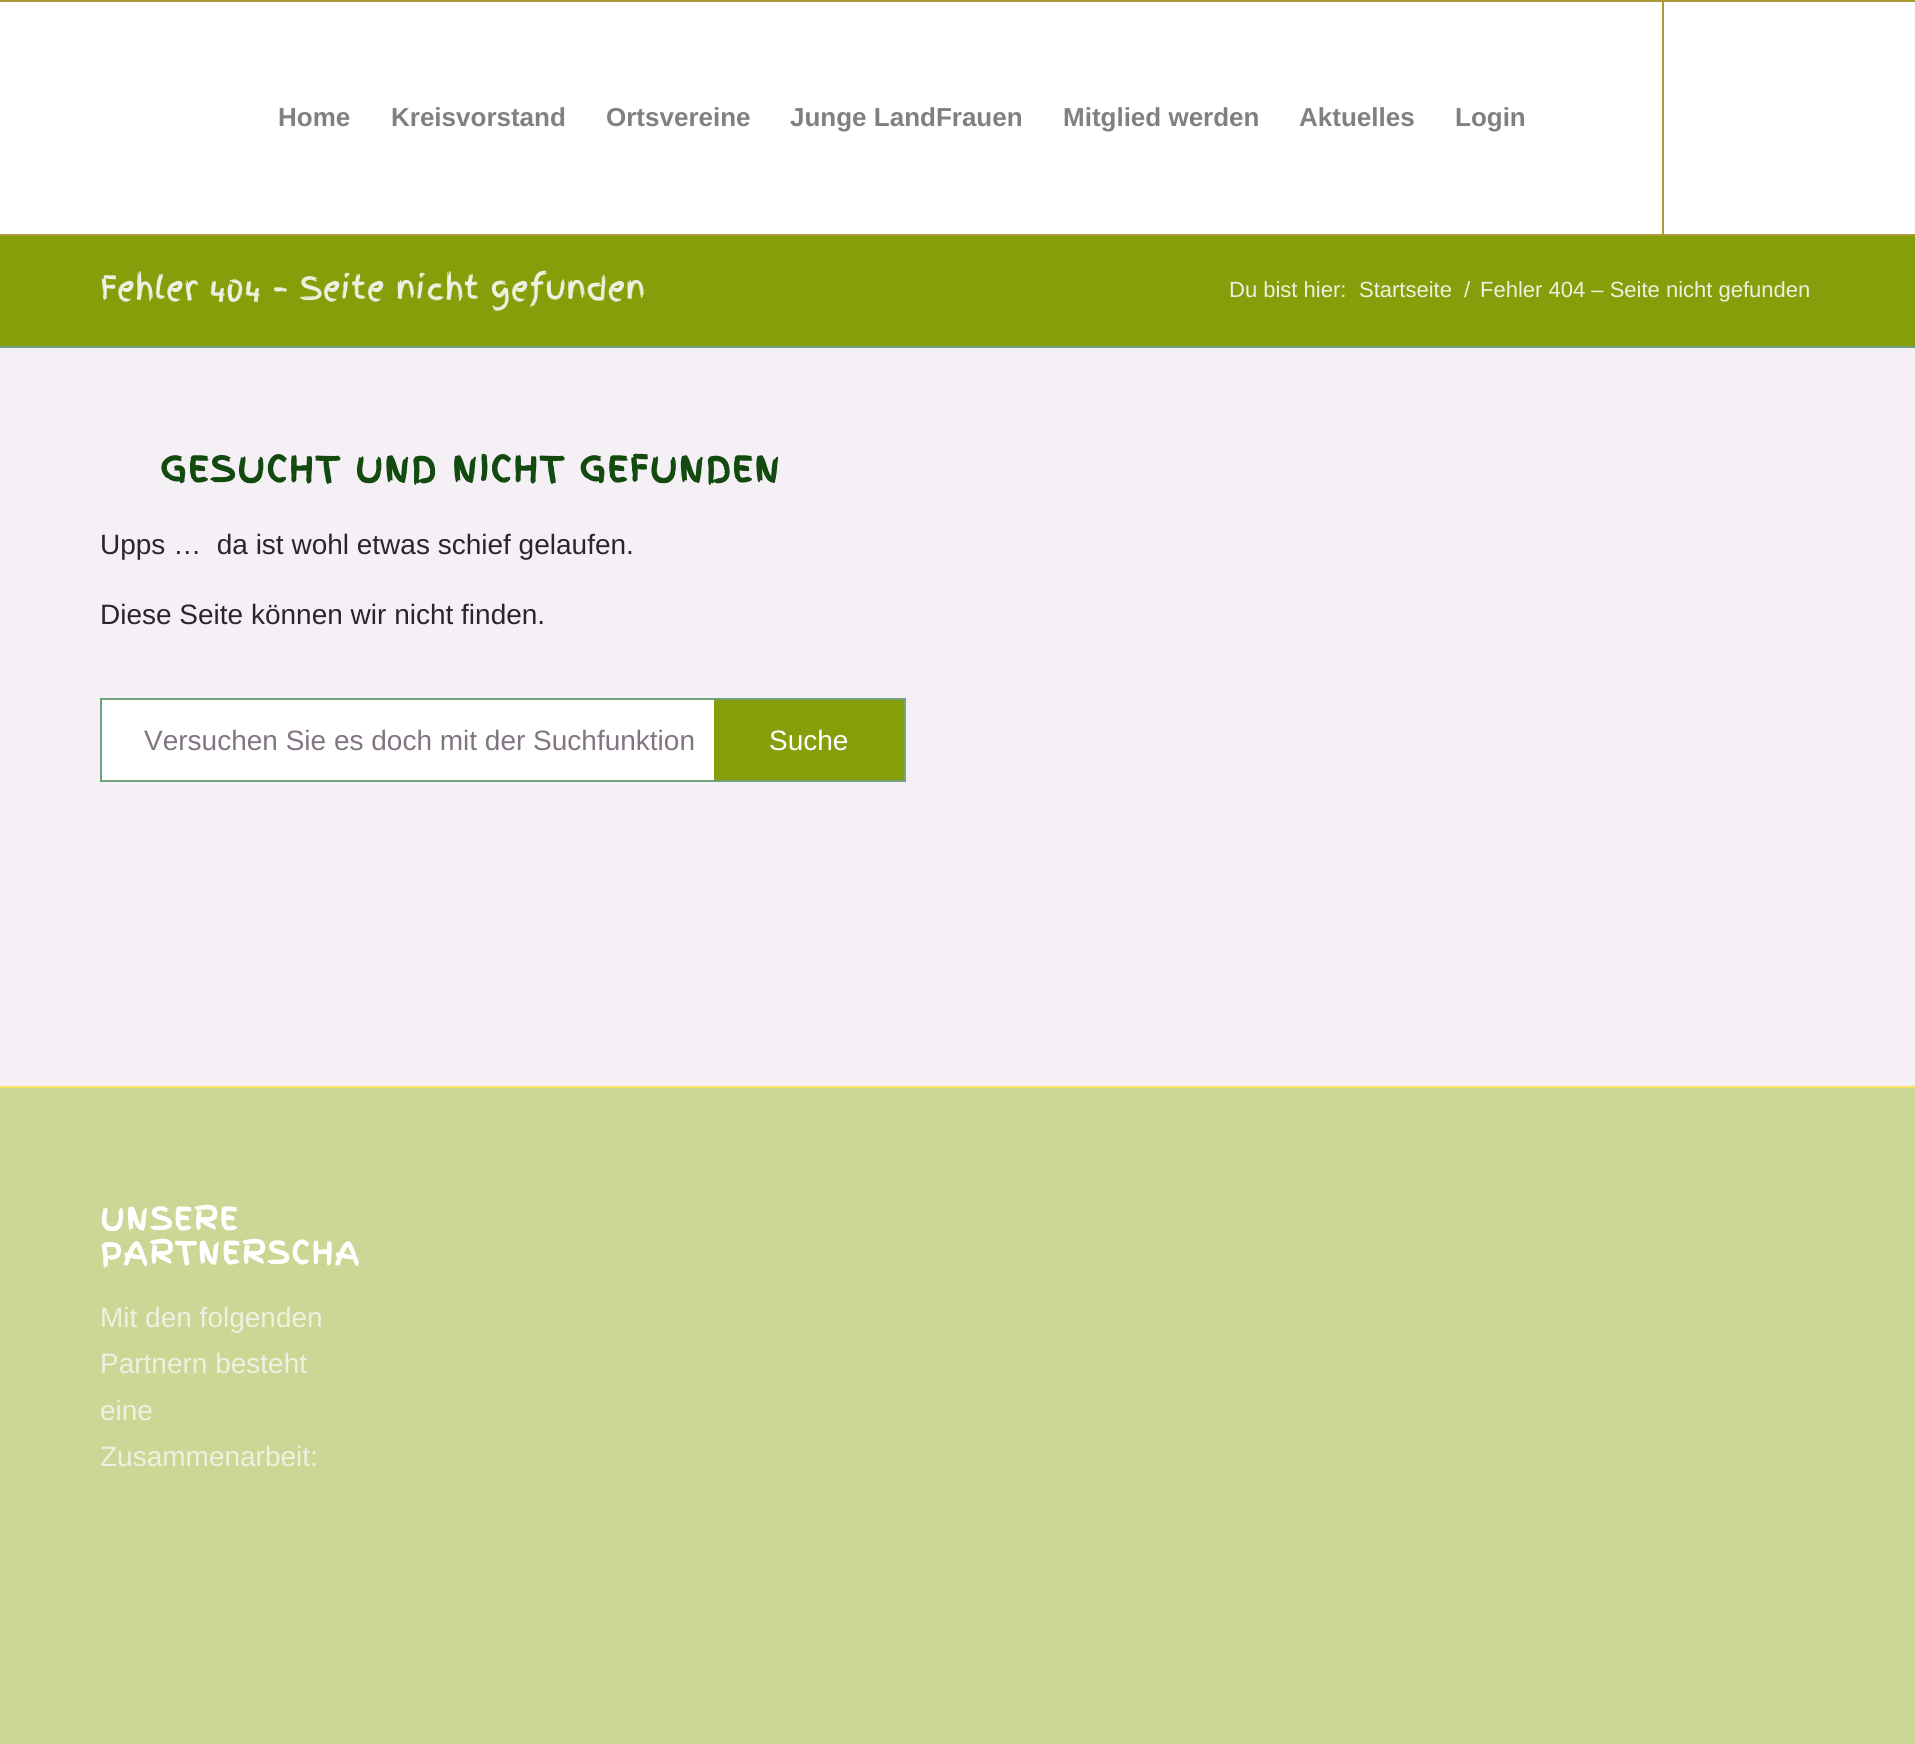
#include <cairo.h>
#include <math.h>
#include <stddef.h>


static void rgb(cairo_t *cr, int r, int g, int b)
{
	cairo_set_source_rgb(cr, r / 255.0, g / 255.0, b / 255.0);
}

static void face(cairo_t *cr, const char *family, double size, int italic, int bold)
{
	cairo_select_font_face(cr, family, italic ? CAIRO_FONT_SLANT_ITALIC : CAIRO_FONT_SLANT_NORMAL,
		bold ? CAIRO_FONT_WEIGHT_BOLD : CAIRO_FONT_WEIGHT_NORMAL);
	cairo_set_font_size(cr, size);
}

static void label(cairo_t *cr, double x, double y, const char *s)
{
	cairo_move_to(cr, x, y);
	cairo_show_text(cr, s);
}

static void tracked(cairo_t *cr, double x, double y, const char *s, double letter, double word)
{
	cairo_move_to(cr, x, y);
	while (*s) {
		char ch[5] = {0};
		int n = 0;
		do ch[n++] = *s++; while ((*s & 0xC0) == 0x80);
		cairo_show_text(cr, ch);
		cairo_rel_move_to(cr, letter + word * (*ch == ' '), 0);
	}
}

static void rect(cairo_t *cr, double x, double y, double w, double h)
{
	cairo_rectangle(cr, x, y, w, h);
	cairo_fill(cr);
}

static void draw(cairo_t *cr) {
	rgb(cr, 133, 158, 9);
	cairo_paint(cr);
	rgb(cr, 255, 255, 255);
	rect(cr, 0, 2, 1915, 232);
	rgb(cr, 171, 156, 55);
	rect(cr, 0, 0, 1915, 2);
	rect(cr, 0, 234, 1915, 2);
	rect(cr, 1662, 2, 2, 232);
	face(cr, "Liberation Sans", 26, 0, 1);
	rgb(cr, 128, 128, 128);
	label(cr, 278, 126, "Home");
	label(cr, 391, 126, "Kreisvorstand");
	label(cr, 606, 126, "Ortsvereine");
	label(cr, 790, 126, "Junge LandFrauen");
	label(cr, 1063, 126, "Mitglied werden");
	label(cr, 1299, 126, "Aktuelles");
	label(cr, 1455, 126, "Login");
	face(cr, "Finger Paint", 32, 0, 0);
	rgb(cr, 236, 242, 225);
	label(cr, 100, 300, "Fehler 404 – Seite nicht gefunden");
	face(cr, "Liberation Sans", 22, 0, 0);
	label(cr, 1229, 297, "Du bist hier:");
	label(cr, 1359, 297, "Startseite");
	label(cr, 1464, 297, "/");
	label(cr, 1480, 297, "Fehler 404 – Seite nicht gefunden");
	rgb(cr, 245, 240, 245);
	rect(cr, 0, 348, 1915, 738);
	rgb(cr, 116, 161, 126);
	rect(cr, 0, 346, 1915, 2);
	face(cr, "Finger Paint", 35, 0, 1);
	rgb(cr, 19, 74, 15);
	tracked(cr, 160, 482, "GESUCHT UND NICHT GEFUNDEN", 2, 0);
	face(cr, "Liberation Sans", 28, 0, 0);
	rgb(cr, 46, 36, 46);
	label(cr, 100, 554, "Upps …  da ist wohl etwas schief gelaufen.");
	label(cr, 100, 624, "Diese Seite können wir nicht finden.");
	cairo_rectangle(cr, 101, 699, 804, 82);
	rgb(cr, 116, 161, 126);
	cairo_stroke(cr);
	rgb(cr, 255, 255, 255);
	rect(cr, 102, 700, 612, 80);
	rgb(cr, 130, 117, 130);
	label(cr, 144, 750, "Versuchen Sie es doch mit der Suchfunktion");
	rgb(cr, 133, 158, 9);
	rect(cr, 714, 700, 190, 80);
	rgb(cr, 255, 255, 255);
	label(cr, 769, 750, "Suche");
	rgb(cr, 204, 214, 149);
	rect(cr, 0, 1088, 1915, 656);
	rgb(cr, 247, 227, 94);
	rect(cr, 0, 1086, 1915, 2);
	face(cr, "Finger Paint", 30.75, 0, 1);
	rgb(cr, 255, 255, 255);
	tracked(cr, 100, 1230, "UNSERE", 2, 0);
	tracked(cr, 100, 1264, "PARTNERSCHA", 2, 0);
	face(cr, "Liberation Sans", 28, 0, 0);
	rgb(cr, 236, 242, 225);
	label(cr, 100, 1327, "Mit den folgenden");
	label(cr, 100, 1373, "Partnern besteht");
	label(cr, 100, 1420, "eine");
	label(cr, 100, 1466, "Zusammenarbeit:");
}

int main(void) {
	cairo_surface_t *surface = cairo_image_surface_create(CAIRO_FORMAT_RGB24, 1915, 1744);
	cairo_t *cr = cairo_create(surface);
	cairo_font_options_t *options = cairo_font_options_create();
	cairo_font_options_set_hint_metrics(options, CAIRO_HINT_METRICS_OFF);
	cairo_font_options_set_hint_style(options, CAIRO_HINT_STYLE_NONE);
	cairo_set_font_options(cr, options);
	cairo_set_miter_limit(cr, 4);
	draw(cr);
	cairo_surface_write_to_png(surface, "render.png");
	cairo_font_options_destroy(options);
	cairo_destroy(cr);
	cairo_surface_destroy(surface);
	return 0;
}
